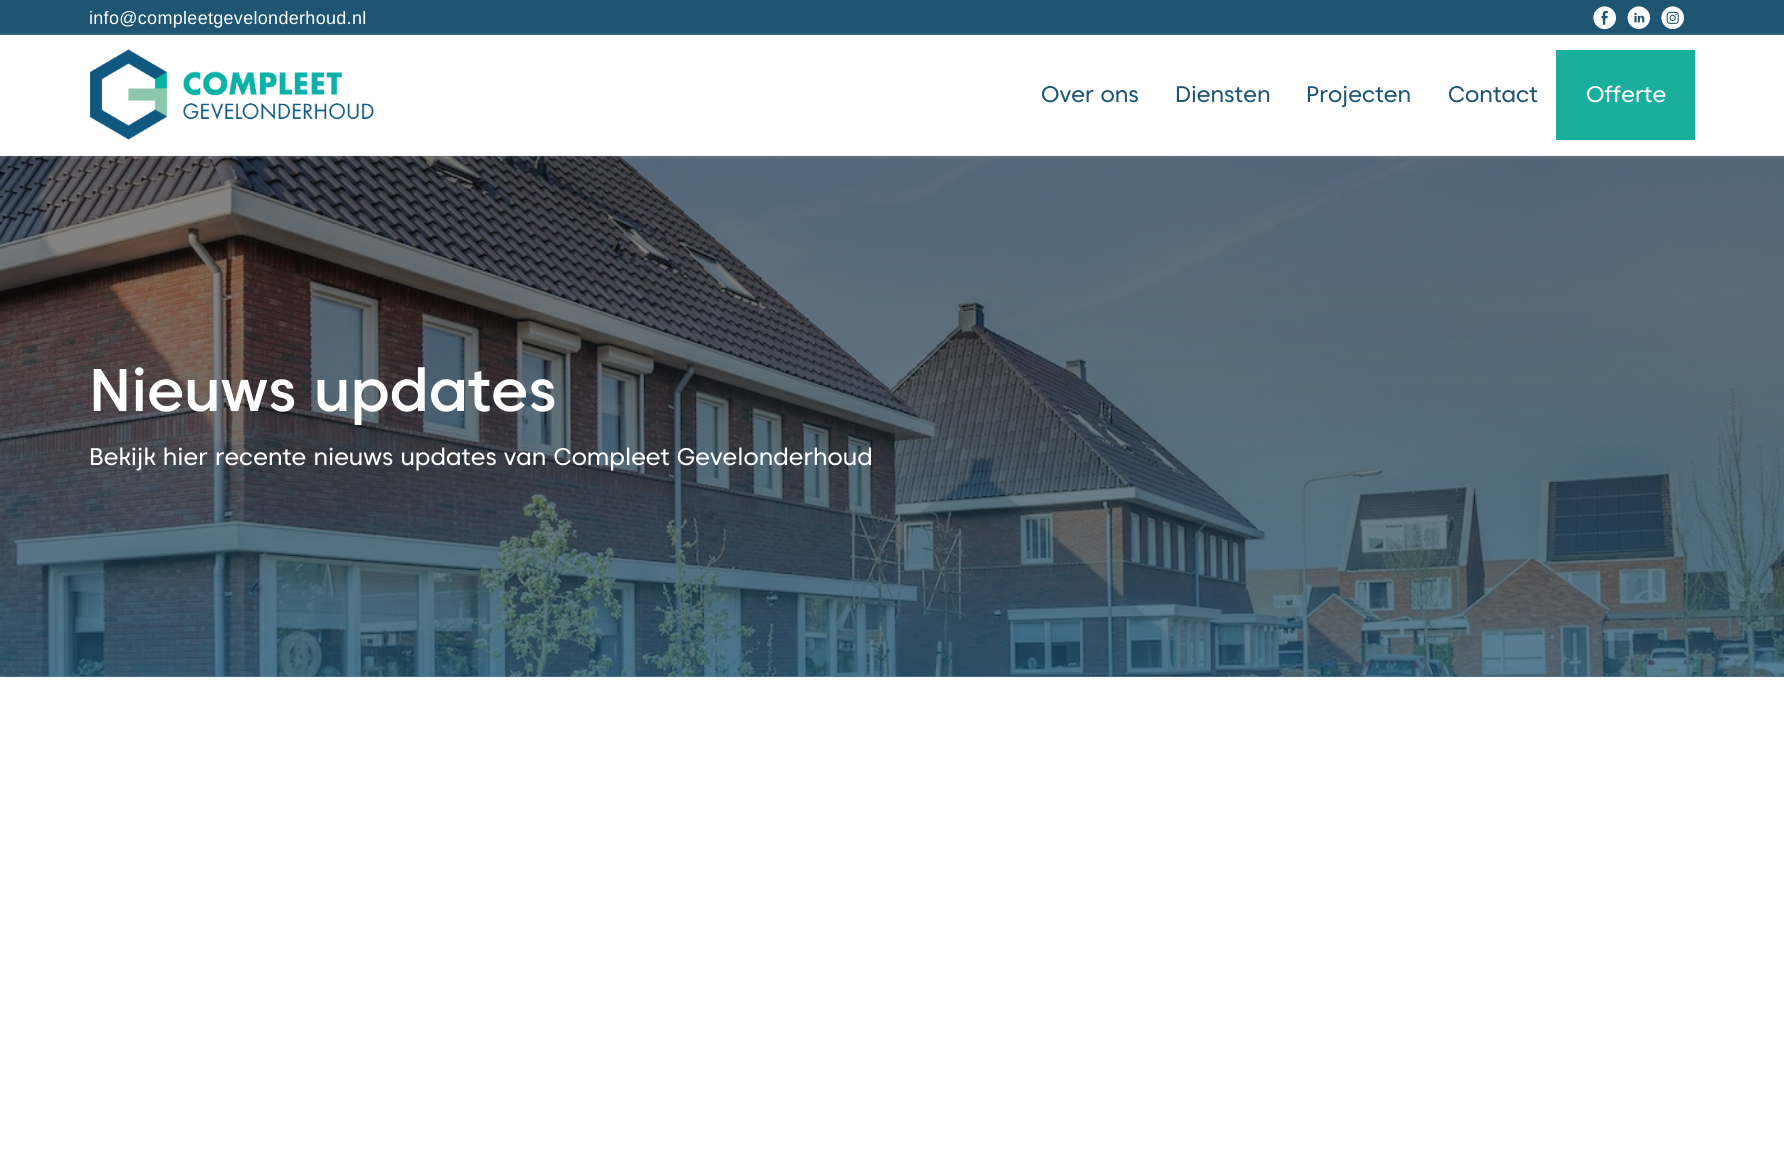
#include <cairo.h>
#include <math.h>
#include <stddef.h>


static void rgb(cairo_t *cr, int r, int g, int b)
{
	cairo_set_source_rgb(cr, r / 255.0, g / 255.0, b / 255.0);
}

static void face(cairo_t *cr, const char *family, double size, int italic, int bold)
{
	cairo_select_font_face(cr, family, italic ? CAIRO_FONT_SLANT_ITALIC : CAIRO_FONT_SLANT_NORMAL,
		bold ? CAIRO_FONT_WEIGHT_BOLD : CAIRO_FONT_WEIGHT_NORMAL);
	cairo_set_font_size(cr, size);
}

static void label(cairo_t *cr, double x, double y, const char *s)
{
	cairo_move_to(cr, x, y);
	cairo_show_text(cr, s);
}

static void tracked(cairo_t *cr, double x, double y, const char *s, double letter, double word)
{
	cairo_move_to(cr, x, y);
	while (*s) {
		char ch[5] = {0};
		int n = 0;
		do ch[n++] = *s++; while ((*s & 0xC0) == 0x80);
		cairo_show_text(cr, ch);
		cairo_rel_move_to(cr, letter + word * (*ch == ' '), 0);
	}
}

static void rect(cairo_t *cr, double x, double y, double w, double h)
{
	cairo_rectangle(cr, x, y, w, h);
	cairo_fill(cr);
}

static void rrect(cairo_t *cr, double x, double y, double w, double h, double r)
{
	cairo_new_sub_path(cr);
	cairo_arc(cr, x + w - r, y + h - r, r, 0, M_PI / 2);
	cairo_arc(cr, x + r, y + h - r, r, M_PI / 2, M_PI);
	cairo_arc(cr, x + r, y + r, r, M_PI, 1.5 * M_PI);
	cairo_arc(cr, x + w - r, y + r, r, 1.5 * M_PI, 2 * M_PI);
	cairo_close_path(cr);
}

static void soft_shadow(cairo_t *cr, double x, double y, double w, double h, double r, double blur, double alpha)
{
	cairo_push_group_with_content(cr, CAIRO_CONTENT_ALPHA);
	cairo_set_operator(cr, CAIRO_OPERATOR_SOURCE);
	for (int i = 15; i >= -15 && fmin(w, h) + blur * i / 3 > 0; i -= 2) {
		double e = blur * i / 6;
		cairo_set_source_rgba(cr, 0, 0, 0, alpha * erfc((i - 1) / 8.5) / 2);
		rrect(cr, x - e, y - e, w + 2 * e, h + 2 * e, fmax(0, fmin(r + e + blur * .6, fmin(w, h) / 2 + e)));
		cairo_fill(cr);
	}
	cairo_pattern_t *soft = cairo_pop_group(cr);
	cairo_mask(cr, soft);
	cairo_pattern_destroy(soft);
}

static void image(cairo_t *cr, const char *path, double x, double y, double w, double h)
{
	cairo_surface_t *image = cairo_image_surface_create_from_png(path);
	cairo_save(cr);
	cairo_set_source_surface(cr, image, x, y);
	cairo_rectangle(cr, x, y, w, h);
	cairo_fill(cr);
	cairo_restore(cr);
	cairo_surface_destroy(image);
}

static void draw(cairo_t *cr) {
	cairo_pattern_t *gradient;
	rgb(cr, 255, 255, 255);
	cairo_paint(cr);
	rgb(cr, 29, 85, 115);
	rect(cr, 0, 0, 1784, 35);
	face(cr, "Liberation Sans", 18, 0, 0);
	rgb(cr, 255, 255, 255);
	tracked(cr, 89, 24, "info@compleetgevelonderhoud.nl", 0.3, 0);
	image(cr, "image1.png", 0, 156, 1784, 521);
	gradient = cairo_pattern_create_linear(893, 156, 893, 677);
	cairo_pattern_add_color_stop_rgba(gradient, 0.25, 0.055, 0.059, 0.059, 0.5);
	cairo_pattern_add_color_stop_rgba(gradient, 1, 0.114, 0.333, 0.451, 0.75);
	cairo_set_source(cr, gradient);
	cairo_pattern_destroy(gradient);
	rect(cr, 0, 156, 1784, 521);
	cairo_save(cr);
	cairo_set_fill_rule(cr, CAIRO_FILL_RULE_EVEN_ODD);
	cairo_new_path(cr);
	cairo_move_to(cr, 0, 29);
	cairo_line_to(cr, 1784, 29);
	cairo_line_to(cr, 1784, 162);
	cairo_line_to(cr, 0, 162);
	cairo_close_path(cr);
	cairo_move_to(cr, 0, 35);
	cairo_line_to(cr, 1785, 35);
	cairo_line_to(cr, 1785, 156);
	cairo_line_to(cr, 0, 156);
	cairo_close_path(cr);
	cairo_clip(cr);
	rgb(cr, 196, 196, 196);
	soft_shadow(cr, 0, 35, 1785, 121, 0, 1.5, 0.46);
	cairo_restore(cr);
	face(cr, "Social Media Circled", 22.5, 0, 0);
	rgb(cr, 255, 255, 255);
	tracked(cr, 1593, 25, "E", 0.3, 0);
	tracked(cr, 1627, 25, "C", 0.3, 0);
	tracked(cr, 1661, 25, "Q", 0.3, 0);
	cairo_set_source_rgba(cr, 0.239, 0.259, 0.294, 0.07);
	rect(cr, 0, 155, 1784, 2);
	image(cr, "image0.png", 90, 49, 284, 91);
	face(cr, "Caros", 22.5, 0, 0);
	rgb(cr, 29, 85, 115);
	label(cr, 1041, 102, "Over ons");
	label(cr, 1175, 102, "Diensten");
	label(cr, 1306, 102, "Projecten");
	label(cr, 1448, 102, "Contact");
	rgb(cr, 25, 175, 156);
	rect(cr, 1556, 50, 139, 90);
	rgb(cr, 255, 255, 255);
	label(cr, 1586, 102, "Offerte");
	face(cr, "Caros Medium", 60, 0, 0);
	label(cr, 89, 411, "Nieuws updates");
	face(cr, "Caros", 24, 0, 0);
	label(cr, 89, 465, "Bekijk hier recente nieuws updates van Compleet Gevelonderhoud");
}

int main(void) {
	cairo_surface_t *surface = cairo_image_surface_create(CAIRO_FORMAT_RGB24, 1784, 1154);
	cairo_t *cr = cairo_create(surface);
	cairo_font_options_t *options = cairo_font_options_create();
	cairo_font_options_set_hint_metrics(options, CAIRO_HINT_METRICS_OFF);
	cairo_font_options_set_hint_style(options, CAIRO_HINT_STYLE_NONE);
	cairo_set_font_options(cr, options);
	cairo_set_miter_limit(cr, 4);
	draw(cr);
	cairo_surface_write_to_png(surface, "render.png");
	cairo_font_options_destroy(options);
	cairo_destroy(cr);
	cairo_surface_destroy(surface);
	return 0;
}
